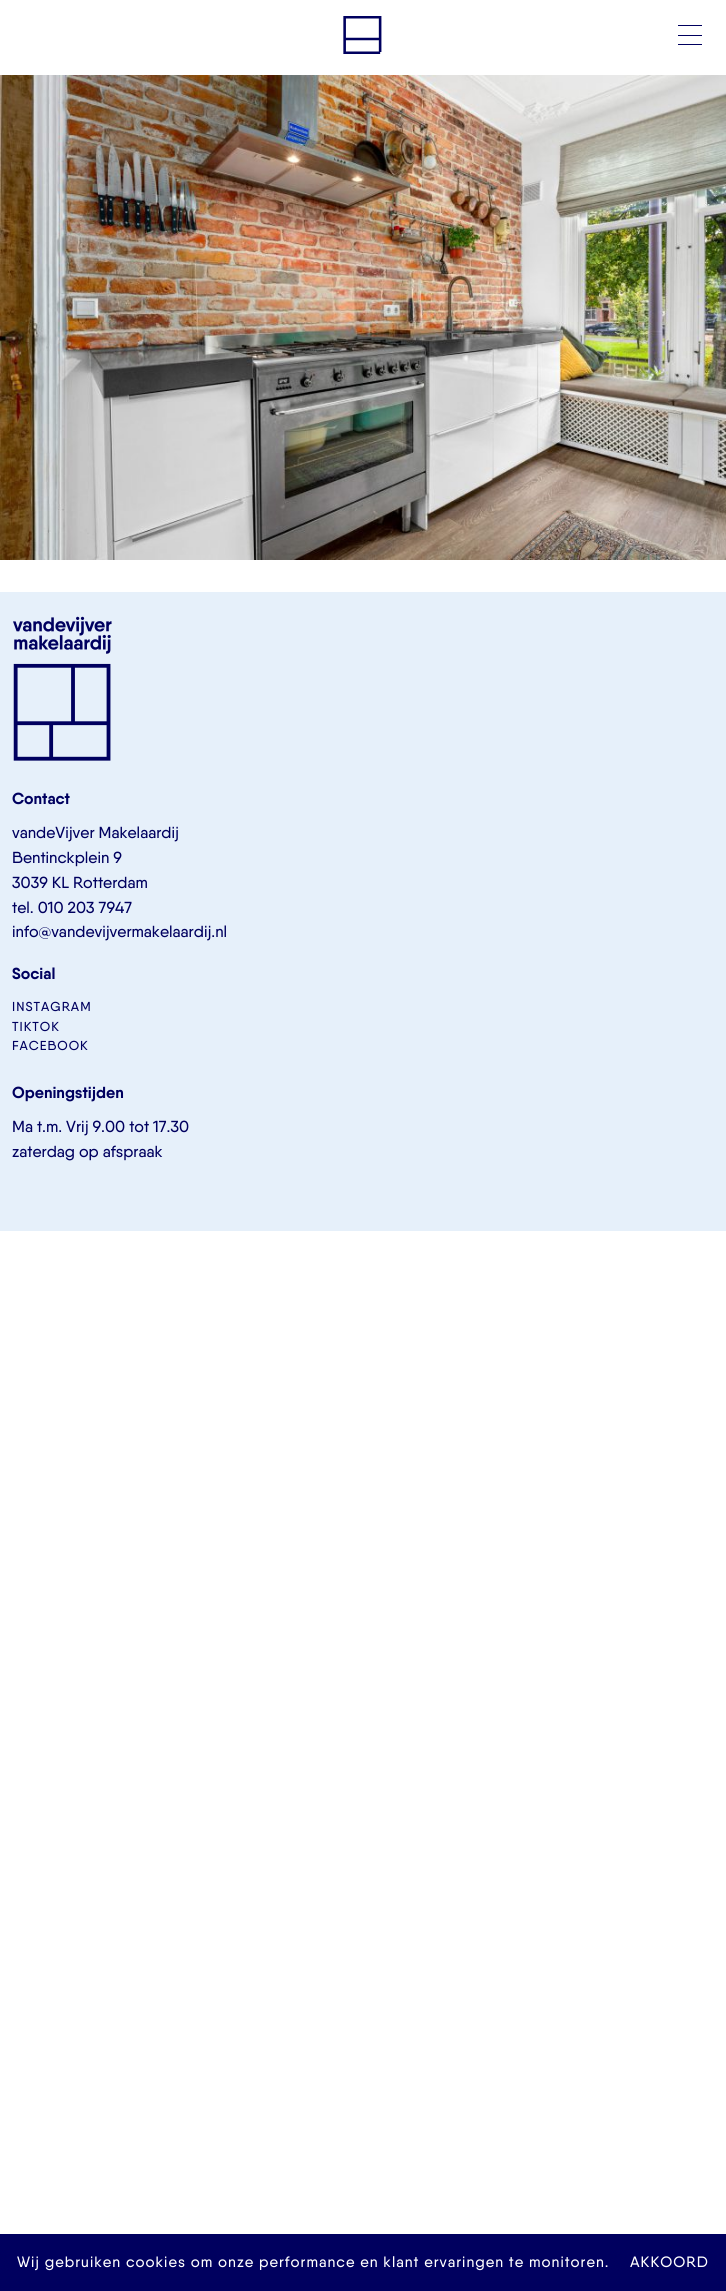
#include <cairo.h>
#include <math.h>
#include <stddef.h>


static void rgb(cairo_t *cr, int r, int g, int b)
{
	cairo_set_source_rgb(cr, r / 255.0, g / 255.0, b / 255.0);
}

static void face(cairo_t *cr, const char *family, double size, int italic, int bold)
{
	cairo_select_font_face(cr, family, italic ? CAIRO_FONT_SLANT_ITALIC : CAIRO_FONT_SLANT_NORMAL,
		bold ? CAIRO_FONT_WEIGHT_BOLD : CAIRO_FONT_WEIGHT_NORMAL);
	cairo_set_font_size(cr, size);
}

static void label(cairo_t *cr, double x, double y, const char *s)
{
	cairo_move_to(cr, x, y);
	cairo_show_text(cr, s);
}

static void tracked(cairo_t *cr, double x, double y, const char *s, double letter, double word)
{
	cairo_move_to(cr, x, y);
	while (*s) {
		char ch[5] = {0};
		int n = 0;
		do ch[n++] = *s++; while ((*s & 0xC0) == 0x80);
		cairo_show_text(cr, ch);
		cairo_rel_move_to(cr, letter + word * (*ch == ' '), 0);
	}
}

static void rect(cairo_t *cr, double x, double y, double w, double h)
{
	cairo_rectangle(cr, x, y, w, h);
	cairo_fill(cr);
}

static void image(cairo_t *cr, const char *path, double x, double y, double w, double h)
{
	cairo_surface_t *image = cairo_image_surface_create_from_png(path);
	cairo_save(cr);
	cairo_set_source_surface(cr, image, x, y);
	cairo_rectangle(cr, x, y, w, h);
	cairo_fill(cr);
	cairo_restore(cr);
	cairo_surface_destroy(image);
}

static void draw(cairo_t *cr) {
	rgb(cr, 255, 255, 255);
	cairo_paint(cr);
	image(cr, "image0.png", 343, 16, 39, 38);
	rgb(cr, 0, 0, 95);
	rect(cr, 678, 25, 24, 1);
	rect(cr, 678, 35, 24, 1);
	rect(cr, 678, 44, 24, 1);
	image(cr, "image1.png", 0, 75, 726, 485);
	rgb(cr, 230, 240, 250);
	rect(cr, 0, 592, 726, 639);
	image(cr, "image2.png", 13, 616, 99, 145);
	face(cr, "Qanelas", 16, 0, 1);
	rgb(cr, 0, 0, 95);
	label(cr, 12, 804, "Contact");
	face(cr, "Qanelas Medium", 16, 0, 0);
	label(cr, 12, 838, "vandeVijver Makelaardij");
	label(cr, 12, 863, "Bentinckplein 9");
	label(cr, 12, 888, "3039 KL Rotterdam");
	label(cr, 12, 913, "tel. 010 203 7947");
	label(cr, 12, 937, "info@vandevijvermakelaardij.nl");
	face(cr, "Qanelas", 16, 0, 1);
	label(cr, 12, 979, "Social");
	face(cr, "Qanelas Medium", 13, 0, 0);
	tracked(cr, 12, 1011, "INSTAGRAM", 1, 0);
	tracked(cr, 12, 1031, "TIKTOK", 1, 0);
	tracked(cr, 12, 1050, "FACEBOOK", 1, 0);
	face(cr, "Qanelas", 16, 0, 1);
	label(cr, 12, 1098, "Openingstijden");
	face(cr, "Qanelas Medium", 16, 0, 0);
	label(cr, 12, 1132, "Ma t.m. Vrij 9.00 tot 17.30");
	label(cr, 12, 1157, "zaterdag op afspraak");
	rect(cr, 0, 2234, 726, 57);
	face(cr, "Qanelas Medium", 15, 0, 0);
	rgb(cr, 255, 255, 255);
	tracked(cr, 17, 2267, "Wij gebruiken cookies om onze performance en klant ervaringen te monitoren.", 1, 0);
	tracked(cr, 630, 2267, "AKKOORD", 1, 0);
}

int main(void) {
	cairo_surface_t *surface = cairo_image_surface_create(CAIRO_FORMAT_RGB24, 726, 2291);
	cairo_t *cr = cairo_create(surface);
	cairo_font_options_t *options = cairo_font_options_create();
	cairo_font_options_set_hint_metrics(options, CAIRO_HINT_METRICS_OFF);
	cairo_font_options_set_hint_style(options, CAIRO_HINT_STYLE_NONE);
	cairo_set_font_options(cr, options);
	cairo_set_miter_limit(cr, 4);
	draw(cr);
	cairo_surface_write_to_png(surface, "render.png");
	cairo_font_options_destroy(options);
	cairo_destroy(cr);
	cairo_surface_destroy(surface);
	return 0;
}
